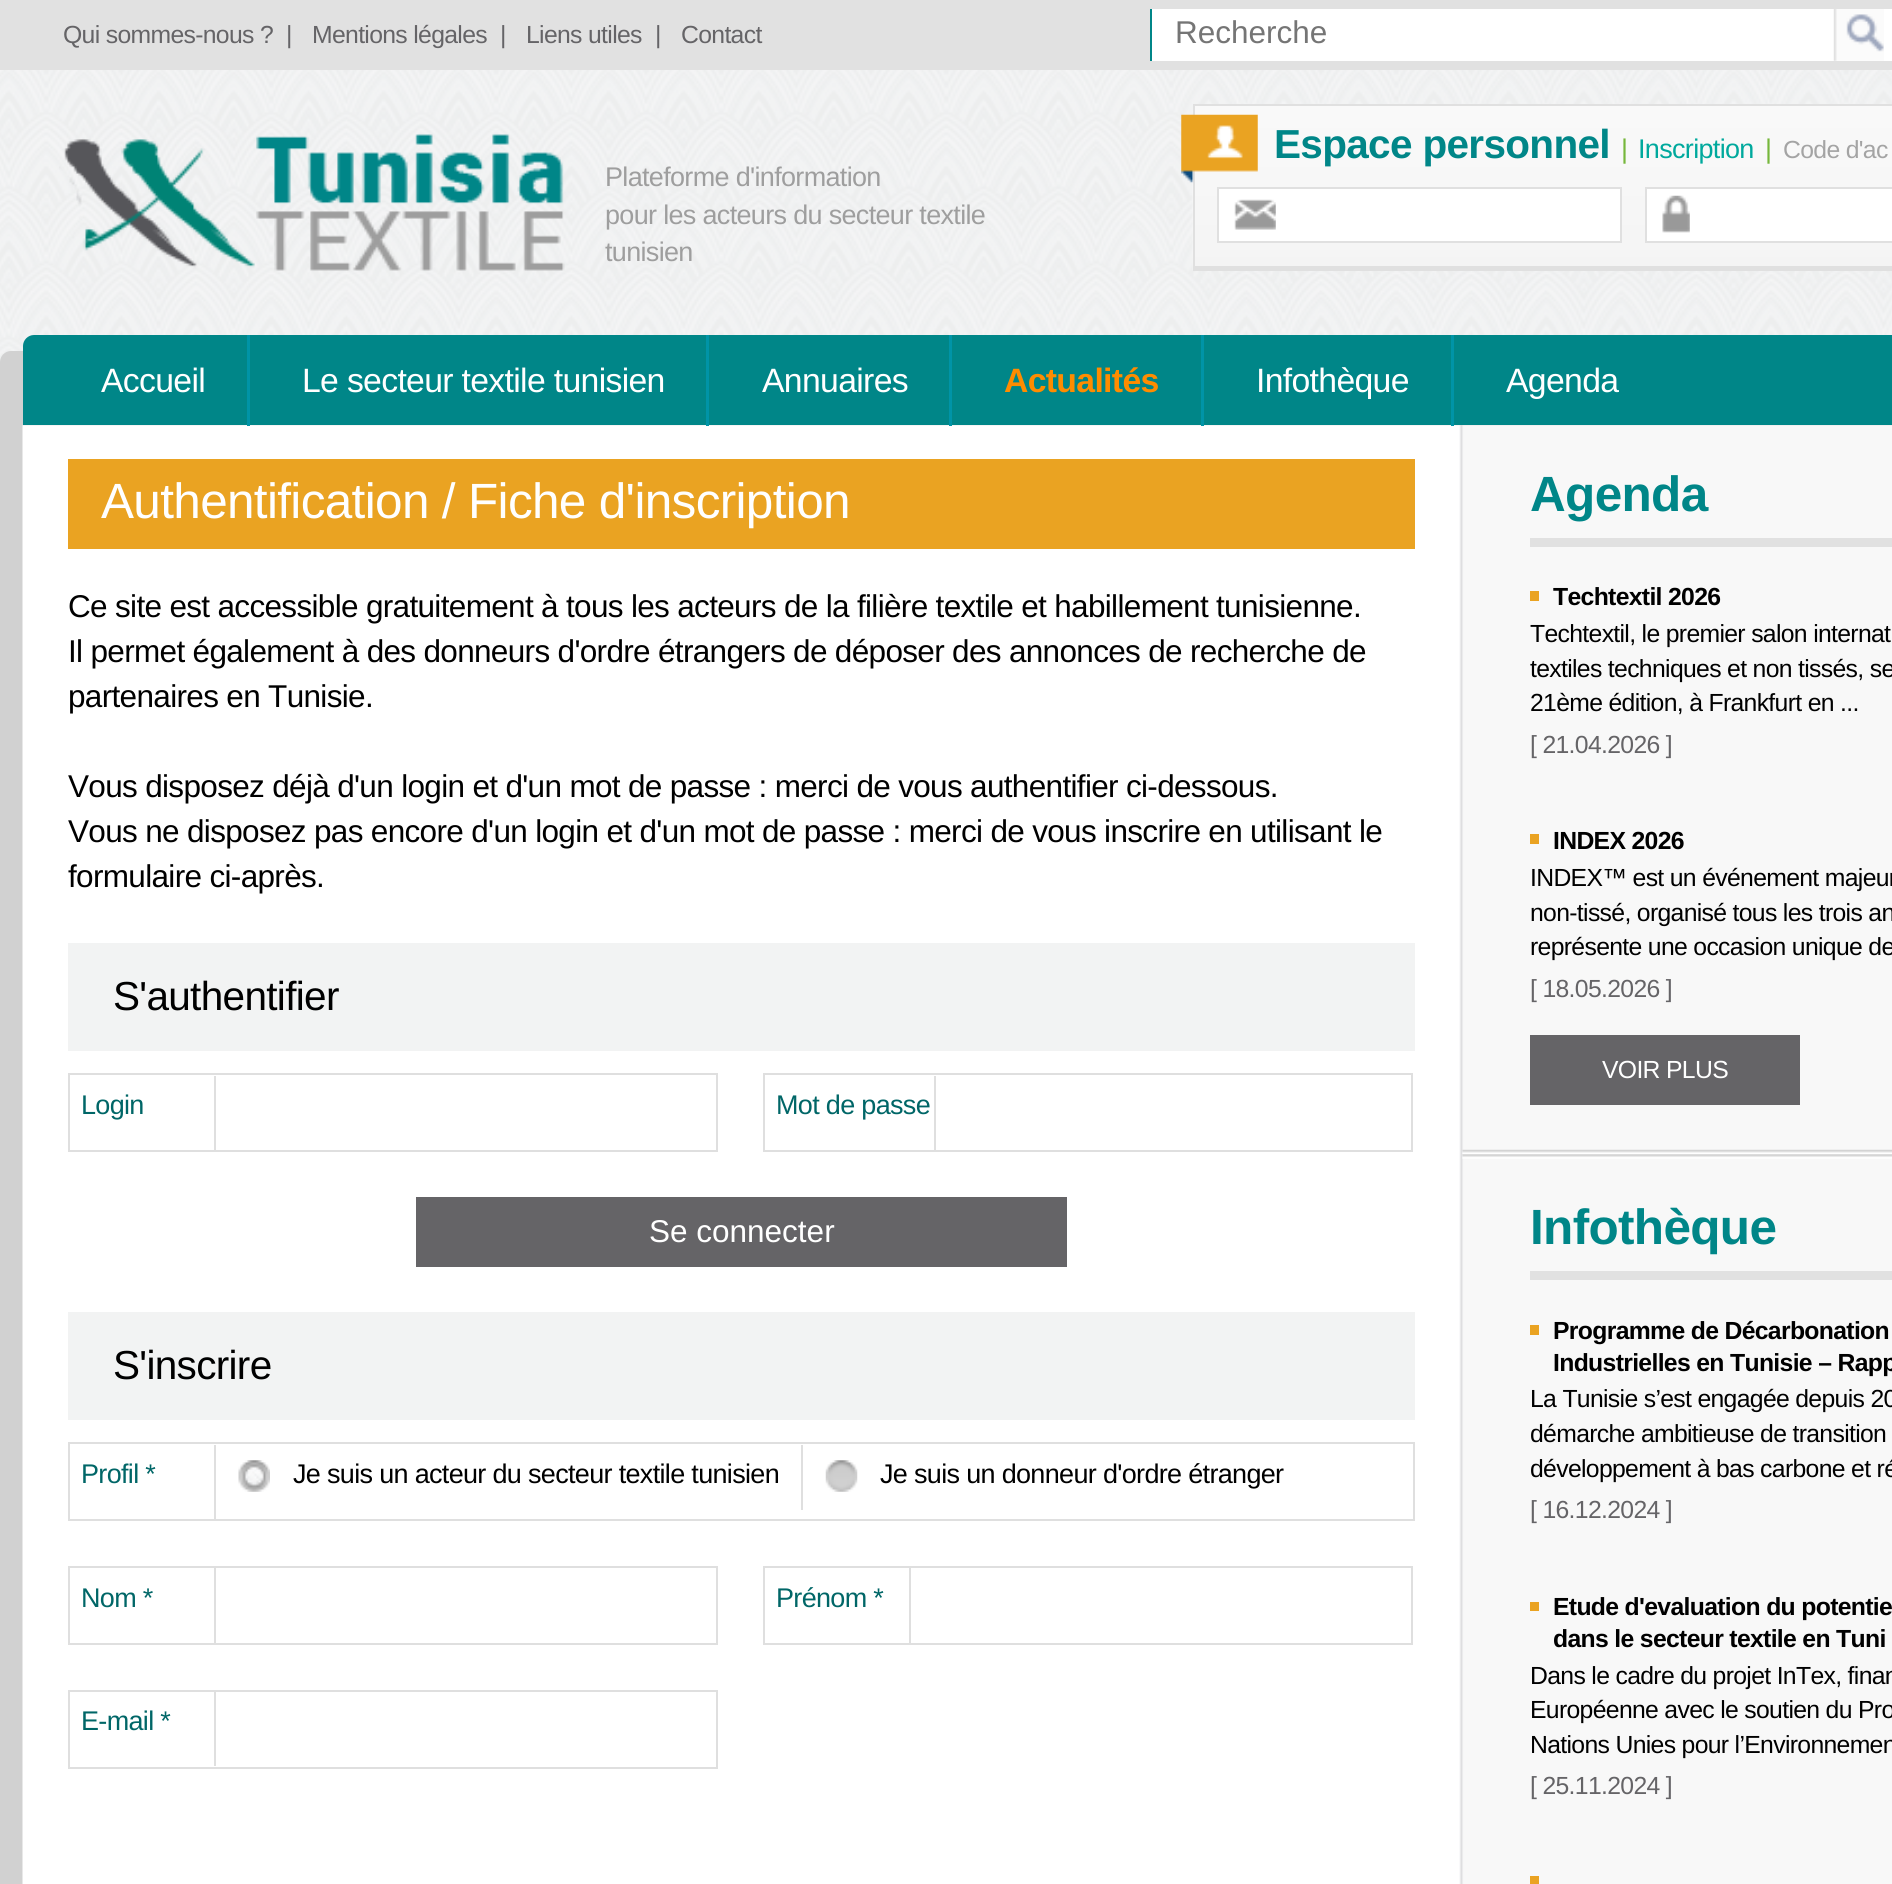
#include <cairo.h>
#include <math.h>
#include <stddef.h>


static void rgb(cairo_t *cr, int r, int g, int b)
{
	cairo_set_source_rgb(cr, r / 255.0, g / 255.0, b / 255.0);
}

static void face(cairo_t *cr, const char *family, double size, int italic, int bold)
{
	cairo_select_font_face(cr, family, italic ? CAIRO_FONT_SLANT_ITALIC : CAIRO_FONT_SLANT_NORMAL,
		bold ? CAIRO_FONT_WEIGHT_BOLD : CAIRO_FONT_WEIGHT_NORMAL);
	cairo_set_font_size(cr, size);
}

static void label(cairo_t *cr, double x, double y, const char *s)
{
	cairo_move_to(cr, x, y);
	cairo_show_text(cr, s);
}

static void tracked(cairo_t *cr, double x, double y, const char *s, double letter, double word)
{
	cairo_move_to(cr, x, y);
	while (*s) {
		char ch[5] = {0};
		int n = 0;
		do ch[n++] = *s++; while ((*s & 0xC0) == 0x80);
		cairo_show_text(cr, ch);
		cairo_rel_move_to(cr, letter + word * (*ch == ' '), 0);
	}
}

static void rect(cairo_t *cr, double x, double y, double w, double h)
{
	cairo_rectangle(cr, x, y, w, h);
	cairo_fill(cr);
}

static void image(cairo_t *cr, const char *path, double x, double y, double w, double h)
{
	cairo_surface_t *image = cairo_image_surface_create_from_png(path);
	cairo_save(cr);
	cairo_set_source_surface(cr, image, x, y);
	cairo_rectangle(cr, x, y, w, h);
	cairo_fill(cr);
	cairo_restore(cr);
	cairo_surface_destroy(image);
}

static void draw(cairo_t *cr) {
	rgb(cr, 255, 255, 255);
	cairo_paint(cr);
	image(cr, "image0.png", 0, 70, 1892, 292);
	rgb(cr, 225, 225, 225);
	rect(cr, 0, 0, 1892, 70);
	face(cr, "Liberation Sans", 24.75, 0, 0);
	rgb(cr, 101, 100, 103);
	tracked(cr, 63, 43, "Qui sommes-nous ?", -0.67, 0);
	tracked(cr, 286, 43, "|", -0.67, 0);
	tracked(cr, 312, 43, "Mentions légales", -0.67, 0);
	tracked(cr, 500, 43, "|", -0.67, 0);
	tracked(cr, 526, 43, "Liens utiles", -0.67, 0);
	tracked(cr, 655, 43, "|", -0.67, 0);
	tracked(cr, 681, 43, "Contact", -0.67, 0);
	rgb(cr, 255, 255, 255);
	rect(cr, 1152, 9, 740, 52);
	rgb(cr, 0, 134, 136);
	rect(cr, 1150, 9, 2, 52);
	face(cr, "Liberation Sans", 31.5, 0, 0);
	rgb(cr, 117, 117, 117);
	label(cr, 1175, 43, "Recherche");
	image(cr, "image1.png", 1833, 9, 51, 52);
	rgb(cr, 249, 249, 249);
	rect(cr, 1195, 106, 697, 14);
	image(cr, "image2.png", 1192, 119, 700, 151);
	rgb(cr, 224, 224, 224);
	rect(cr, 1193, 104, 699, 2);
	rect(cr, 1193, 266, 699, 5);
	rect(cr, 1193, 104, 2, 166);
	image(cr, "image3.png", 1181, 114, 77, 69);
	face(cr, "Liberation Sans", 40.5, 0, 1);
	rgb(cr, 0, 134, 136);
	tracked(cr, 1274, 158, "Espace personnel", -0.67, 0);
	face(cr, "Liberation Sans", 27, 0, 0);
	rgb(cr, 118, 183, 59);
	tracked(cr, 1621, 158, "|", -0.67, 0);
	rgb(cr, 0, 169, 157);
	tracked(cr, 1638, 158, "Inscription", -0.67, 0);
	rgb(cr, 118, 183, 59);
	tracked(cr, 1765, 158, "|", -0.67, 0);
	face(cr, "Liberation Sans", 24.75, 0, 0);
	rgb(cr, 164, 164, 164);
	tracked(cr, 1783, 158, "Code d'ac", -0.67, 0);
	rgb(cr, 255, 255, 255);
	rect(cr, 1219, 189, 401, 52);
	image(cr, "image4.png", 1234, 199, 42, 31);
	cairo_rectangle(cr, 1218, 188, 403, 54);
	rgb(cr, 224, 224, 224);
	cairo_stroke(cr);
	rgb(cr, 255, 255, 255);
	rect(cr, 1647, 189, 245, 52);
	image(cr, "image5.png", 1662, 195, 28, 38);
	cairo_rectangle(cr, 1646, 188, 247, 54);
	rgb(cr, 224, 224, 224);
	cairo_stroke(cr);
	image(cr, "image6.png", 59, 134, 506, 137);
	face(cr, "Liberation Sans", 27, 0, 0);
	rgb(cr, 158, 158, 158);
	tracked(cr, 605, 186, "Plateforme d'information", -0.67, 0);
	tracked(cr, 605, 224, "pour les acteurs du secteur textile", -0.67, 0);
	tracked(cr, 605, 261, "tunisien", -0.67, 0);
	rgb(cr, 209, 209, 209);
	cairo_new_path(cr);
	cairo_move_to(cr, 11, 351);
	cairo_line_to(cr, 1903, 351);
	cairo_line_to(cr, 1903, 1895);
	cairo_line_to(cr, 0, 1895);
	cairo_line_to(cr, 0, 362);
	cairo_curve_to(cr, 0, 356, 5, 351, 11, 351);
	cairo_close_path(cr);
	cairo_fill(cr);
	rgb(cr, 0, 134, 136);
	cairo_new_path(cr);
	cairo_move_to(cr, 34, 335);
	cairo_line_to(cr, 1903, 335);
	cairo_line_to(cr, 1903, 425);
	cairo_line_to(cr, 23, 425);
	cairo_line_to(cr, 23, 346);
	cairo_curve_to(cr, 23, 340, 28, 335, 34, 335);
	cairo_close_path(cr);
	cairo_fill(cr);
	image(cr, "image7.png", 22, 425, 1870, 1459);
	rgb(cr, 0, 148, 167);
	rect(cr, 247, 335, 3, 91);
	face(cr, "Liberation Sans", 33.75, 0, 0);
	rgb(cr, 255, 255, 255);
	tracked(cr, 101, 392, "Accueil", -0.67, 0);
	rgb(cr, 0, 148, 167);
	rect(cr, 706, 335, 3, 91);
	rgb(cr, 255, 255, 255);
	tracked(cr, 302, 392, "Le secteur textile tunisien", -0.67, 0);
	rgb(cr, 0, 148, 167);
	rect(cr, 949, 335, 3, 91);
	rgb(cr, 255, 255, 255);
	tracked(cr, 762, 392, "Annuaires", -0.67, 0);
	rgb(cr, 0, 148, 167);
	rect(cr, 1201, 335, 3, 91);
	face(cr, "Liberation Sans", 33.75, 0, 1);
	rgb(cr, 255, 140, 0);
	tracked(cr, 1004, 392, "Actualités", -0.67, 0);
	rgb(cr, 0, 148, 167);
	rect(cr, 1451, 335, 3, 91);
	face(cr, "Liberation Sans", 33.75, 0, 0);
	rgb(cr, 255, 255, 255);
	tracked(cr, 1256, 392, "Infothèque", -0.67, 0);
	tracked(cr, 1506, 392, "Agenda", -0.67, 0);
	rgb(cr, 234, 163, 34);
	rect(cr, 68, 459, 1347, 90);
	face(cr, "Liberation Sans", 49.5, 0, 0);
	rgb(cr, 255, 255, 255);
	tracked(cr, 101, 518, "Authentification / Fiche d'inscription", -0.67, 0);
	face(cr, "Liberation Sans", 31.5, 0, 0);
	rgb(cr, 0, 0, 0);
	tracked(cr, 68, 617, "Ce site est accessible gratuitement à tous les acteurs de la filière textile et habillement tunisienne.", -0.67, 0);
	tracked(cr, 68, 662, "Il permet également à des donneurs d'ordre étrangers de déposer des annonces de recherche de", -0.67, 0);
	tracked(cr, 68, 707, "partenaires en Tunisie.", -0.67, 0);
	tracked(cr, 68, 797, "Vous disposez déjà d'un login et d'un mot de passe : merci de vous authentifier ci-dessous.", -0.67, 0);
	tracked(cr, 68, 842, "Vous ne disposez pas encore d'un login et d'un mot de passe : merci de vous inscrire en utilisant le", -0.67, 0);
	tracked(cr, 68, 887, "formulaire ci-après.", -0.67, 0);
	rgb(cr, 242, 243, 243);
	rect(cr, 68, 943, 1347, 108);
	face(cr, "Liberation Sans", 40.5, 0, 0);
	rgb(cr, 0, 0, 0);
	tracked(cr, 113, 1010, "S'authentifier", -0.67, 0);
	cairo_rectangle(cr, 69, 1074, 648, 77);
	rgb(cr, 223, 223, 223);
	cairo_stroke(cr);
	face(cr, "Liberation Sans", 27, 0, 0);
	rgb(cr, 0, 102, 103);
	tracked(cr, 81, 1114, "Login", -0.67, 0);
	rgb(cr, 223, 223, 223);
	rect(cr, 214, 1076, 2, 74);
	cairo_rectangle(cr, 764, 1074, 648, 77);
	cairo_stroke(cr);
	rgb(cr, 0, 102, 103);
	tracked(cr, 776, 1114, "Mot de passe", -0.67, 0);
	rgb(cr, 223, 223, 223);
	rect(cr, 934, 1076, 2, 74);
	rgb(cr, 101, 100, 103);
	rect(cr, 416, 1197, 651, 70);
	face(cr, "Liberation Sans", 31.5, 0, 0);
	rgb(cr, 255, 255, 255);
	label(cr, 649, 1242, "Se connecter");
	rgb(cr, 242, 243, 243);
	rect(cr, 68, 1312, 1347, 108);
	face(cr, "Liberation Sans", 40.5, 0, 0);
	rgb(cr, 0, 0, 0);
	tracked(cr, 113, 1379, "S'inscrire", -0.67, 0);
	cairo_rectangle(cr, 69, 1443, 1345, 77);
	rgb(cr, 223, 223, 223);
	cairo_stroke(cr);
	face(cr, "Liberation Sans", 27, 0, 0);
	rgb(cr, 0, 102, 103);
	tracked(cr, 81, 1483, "Profil *", -0.67, 0);
	rgb(cr, 223, 223, 223);
	rect(cr, 214, 1445, 2, 74);
	rect(cr, 801, 1445, 2, 65);
	image(cr, "image8.png", 238, 1460, 32, 32);
	rgb(cr, 0, 0, 0);
	tracked(cr, 293, 1483, "Je suis un acteur du secteur textile tunisien", -0.67, 0);
	image(cr, "image9.png", 825, 1460, 33, 32);
	tracked(cr, 880, 1483, "Je suis un donneur d'ordre étranger", -0.67, 0);
	cairo_rectangle(cr, 69, 1567, 648, 77);
	rgb(cr, 223, 223, 223);
	cairo_stroke(cr);
	rgb(cr, 0, 102, 103);
	tracked(cr, 81, 1607, "Nom *", -0.67, 0);
	rgb(cr, 223, 223, 223);
	rect(cr, 214, 1568, 2, 75);
	cairo_rectangle(cr, 764, 1567, 648, 77);
	cairo_stroke(cr);
	rgb(cr, 0, 102, 103);
	tracked(cr, 776, 1607, "Prénom *", -0.67, 0);
	rgb(cr, 223, 223, 223);
	rect(cr, 909, 1568, 2, 75);
	cairo_rectangle(cr, 69, 1691, 648, 77);
	cairo_stroke(cr);
	rgb(cr, 0, 102, 103);
	tracked(cr, 81, 1730, "E-mail *", -0.67, 0);
	rgb(cr, 223, 223, 223);
	rect(cr, 214, 1692, 2, 74);
	rgb(cr, 225, 225, 225);
	rect(cr, 1530, 538, 362, 9);
	face(cr, "Liberation Sans", 49.5, 0, 1);
	rgb(cr, 0, 134, 136);
	tracked(cr, 1530, 511, "Agenda", -0.67, 0);
	rgb(cr, 234, 163, 34);
	rect(cr, 1530, 591, 9, 10);
	face(cr, "Liberation Sans", 24.75, 0, 1);
	rgb(cr, 0, 0, 0);
	tracked(cr, 1553, 605, "Techtextil 2026", -0.67, 0);
	face(cr, "Liberation Sans", 24.75, 0, 0);
	tracked(cr, 1530, 642, "Techtextil, le premier salon internat", -0.67, 0);
	tracked(cr, 1530, 677, "textiles techniques et non tissés, se", -0.67, 0);
	tracked(cr, 1530, 711, "21ème édition, à Frankfurt en ...", -0.67, 0);
	rgb(cr, 101, 100, 103);
	tracked(cr, 1530, 753, "[ 21.04.2026 ]", -0.67, 0);
	rgb(cr, 234, 163, 34);
	rect(cr, 1530, 834, 9, 10);
	face(cr, "Liberation Sans", 24.75, 0, 1);
	rgb(cr, 0, 0, 0);
	tracked(cr, 1553, 849, "INDEX 2026", -0.67, 0);
	face(cr, "Liberation Sans", 24.75, 0, 0);
	tracked(cr, 1530, 886, "INDEX™ est un événement majeur", -0.67, 0);
	tracked(cr, 1530, 921, "non-tissé, organisé tous les trois an", -0.67, 0);
	tracked(cr, 1530, 955, "représente une occasion unique de", -0.67, 0);
	rgb(cr, 101, 100, 103);
	tracked(cr, 1530, 997, "[ 18.05.2026 ]", -0.67, 0);
	rect(cr, 1530, 1035, 270, 70);
	rgb(cr, 255, 255, 255);
	tracked(cr, 1602, 1078, "VOIR PLUS", -0.67, 0);
	image(cr, "image10.png", 1462, 1149, 430, 5);
	image(cr, "image11.png", 1462, 1154, 430, 5);
	rgb(cr, 225, 225, 225);
	rect(cr, 1530, 1271, 362, 9);
	face(cr, "Liberation Sans", 49.5, 0, 1);
	rgb(cr, 0, 134, 136);
	tracked(cr, 1530, 1244, "Infothèque", -0.67, 0);
	rgb(cr, 234, 163, 34);
	rect(cr, 1530, 1325, 9, 10);
	face(cr, "Liberation Sans", 24.75, 0, 1);
	rgb(cr, 0, 0, 0);
	tracked(cr, 1553, 1339, "Programme de Décarbonation", -0.67, 0);
	tracked(cr, 1553, 1371, "Industrielles en Tunisie – Rapp", -0.67, 0);
	face(cr, "Liberation Sans", 24.75, 0, 0);
	tracked(cr, 1530, 1407, "La Tunisie s’est engagée depuis 20", -0.67, 0);
	tracked(cr, 1530, 1442, "démarche ambitieuse de transition", -0.67, 0);
	tracked(cr, 1530, 1477, "développement à bas carbone et ré", -0.67, 0);
	rgb(cr, 101, 100, 103);
	tracked(cr, 1530, 1518, "[ 16.12.2024 ]", -0.67, 0);
	rgb(cr, 234, 163, 34);
	rect(cr, 1530, 1602, 9, 9);
	face(cr, "Liberation Sans", 24.75, 0, 1);
	rgb(cr, 0, 0, 0);
	tracked(cr, 1553, 1615, "Etude d'evaluation du potentie", -0.67, 0);
	tracked(cr, 1553, 1647, "dans le secteur textile en Tuni", -0.67, 0);
	face(cr, "Liberation Sans", 24.75, 0, 0);
	tracked(cr, 1530, 1684, "Dans le cadre du projet InTex, finan", -0.67, 0);
	tracked(cr, 1530, 1718, "Européenne avec le soutien du Pro", -0.67, 0);
	tracked(cr, 1530, 1753, "Nations Unies pour l’Environnemen", -0.67, 0);
	rgb(cr, 101, 100, 103);
	tracked(cr, 1530, 1794, "[ 25.11.2024 ]", -0.67, 0);
	rgb(cr, 234, 163, 34);
	rect(cr, 1530, 1876, 9, 8);
}

int main(void) {
	cairo_surface_t *surface = cairo_image_surface_create(CAIRO_FORMAT_RGB24, 1892, 1884);
	cairo_t *cr = cairo_create(surface);
	cairo_font_options_t *options = cairo_font_options_create();
	cairo_font_options_set_hint_metrics(options, CAIRO_HINT_METRICS_OFF);
	cairo_font_options_set_hint_style(options, CAIRO_HINT_STYLE_NONE);
	cairo_set_font_options(cr, options);
	cairo_set_miter_limit(cr, 4);
	draw(cr);
	cairo_surface_write_to_png(surface, "render.png");
	cairo_font_options_destroy(options);
	cairo_destroy(cr);
	cairo_surface_destroy(surface);
	return 0;
}
